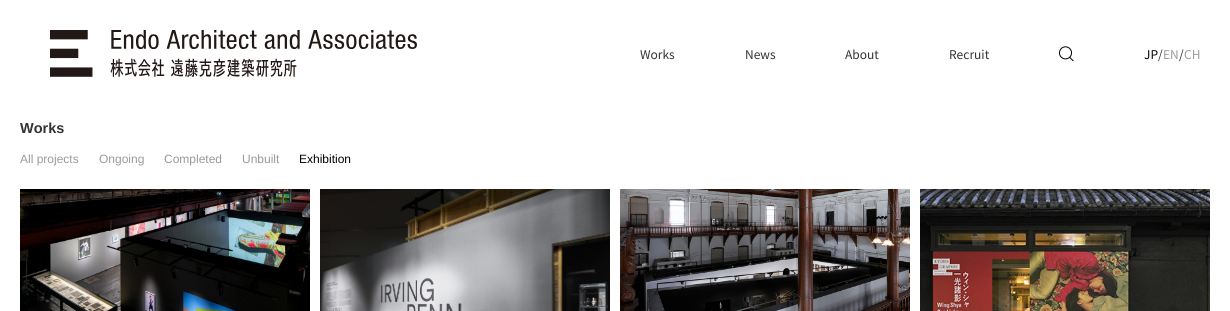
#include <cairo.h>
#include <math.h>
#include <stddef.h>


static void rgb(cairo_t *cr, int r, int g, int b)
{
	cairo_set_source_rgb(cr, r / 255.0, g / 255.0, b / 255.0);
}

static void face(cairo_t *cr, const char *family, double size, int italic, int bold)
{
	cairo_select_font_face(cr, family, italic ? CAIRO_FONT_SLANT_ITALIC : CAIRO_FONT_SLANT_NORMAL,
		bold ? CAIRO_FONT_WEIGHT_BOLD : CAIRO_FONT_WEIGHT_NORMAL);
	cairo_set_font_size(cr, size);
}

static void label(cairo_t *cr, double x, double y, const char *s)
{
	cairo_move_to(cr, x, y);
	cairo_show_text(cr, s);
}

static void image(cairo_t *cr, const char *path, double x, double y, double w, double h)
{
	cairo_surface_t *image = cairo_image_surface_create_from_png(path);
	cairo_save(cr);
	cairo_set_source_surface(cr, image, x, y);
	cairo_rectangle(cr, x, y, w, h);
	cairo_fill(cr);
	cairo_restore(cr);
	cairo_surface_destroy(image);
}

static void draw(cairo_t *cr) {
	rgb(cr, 255, 255, 255);
	cairo_paint(cr);
	image(cr, "image0.png", 50, 30, 367, 47);
	face(cr, "Noto Sans KR", 12, 0, 0);
	rgb(cr, 51, 51, 51);
	label(cr, 640, 59, "Works");
	label(cr, 745, 59, "News");
	label(cr, 845, 59, "About");
	label(cr, 949, 59, "Recruit");
	image(cr, "image1.png", 1059, 46, 15, 15);
	rgb(cr, 0, 0, 0);
	label(cr, 1144, 59, "JP");
	rgb(cr, 51, 51, 51);
	label(cr, 1158, 59, "/");
	rgb(cr, 154, 154, 154);
	label(cr, 1163, 59, "EN");
	rgb(cr, 51, 51, 51);
	label(cr, 1179, 59, "/");
	rgb(cr, 154, 154, 154);
	label(cr, 1184, 59, "CH");
	face(cr, "Liberation Sans", 14.5, 0, 1);
	rgb(cr, 51, 51, 51);
	label(cr, 20, 133, "Works");
	face(cr, "Liberation Sans", 12, 0, 0);
	rgb(cr, 154, 154, 154);
	label(cr, 20, 163, "All projects");
	label(cr, 99, 163, "Ongoing");
	label(cr, 164, 163, "Completed");
	label(cr, 242, 163, "Unbuilt");
	rgb(cr, 0, 0, 0);
	label(cr, 299, 163, "Exhibition");
	image(cr, "image2.png", 20, 189, 290, 122);
	image(cr, "image3.png", 320, 189, 290, 122);
	image(cr, "image4.png", 620, 189, 290, 122);
	image(cr, "image5.png", 920, 189, 290, 122);
}

int main(void) {
	cairo_surface_t *surface = cairo_image_surface_create(CAIRO_FORMAT_RGB24, 1230, 311);
	cairo_t *cr = cairo_create(surface);
	cairo_font_options_t *options = cairo_font_options_create();
	cairo_font_options_set_hint_metrics(options, CAIRO_HINT_METRICS_OFF);
	cairo_font_options_set_hint_style(options, CAIRO_HINT_STYLE_NONE);
	cairo_set_font_options(cr, options);
	cairo_set_miter_limit(cr, 4);
	draw(cr);
	cairo_surface_write_to_png(surface, "render.png");
	cairo_font_options_destroy(options);
	cairo_destroy(cr);
	cairo_surface_destroy(surface);
	return 0;
}
